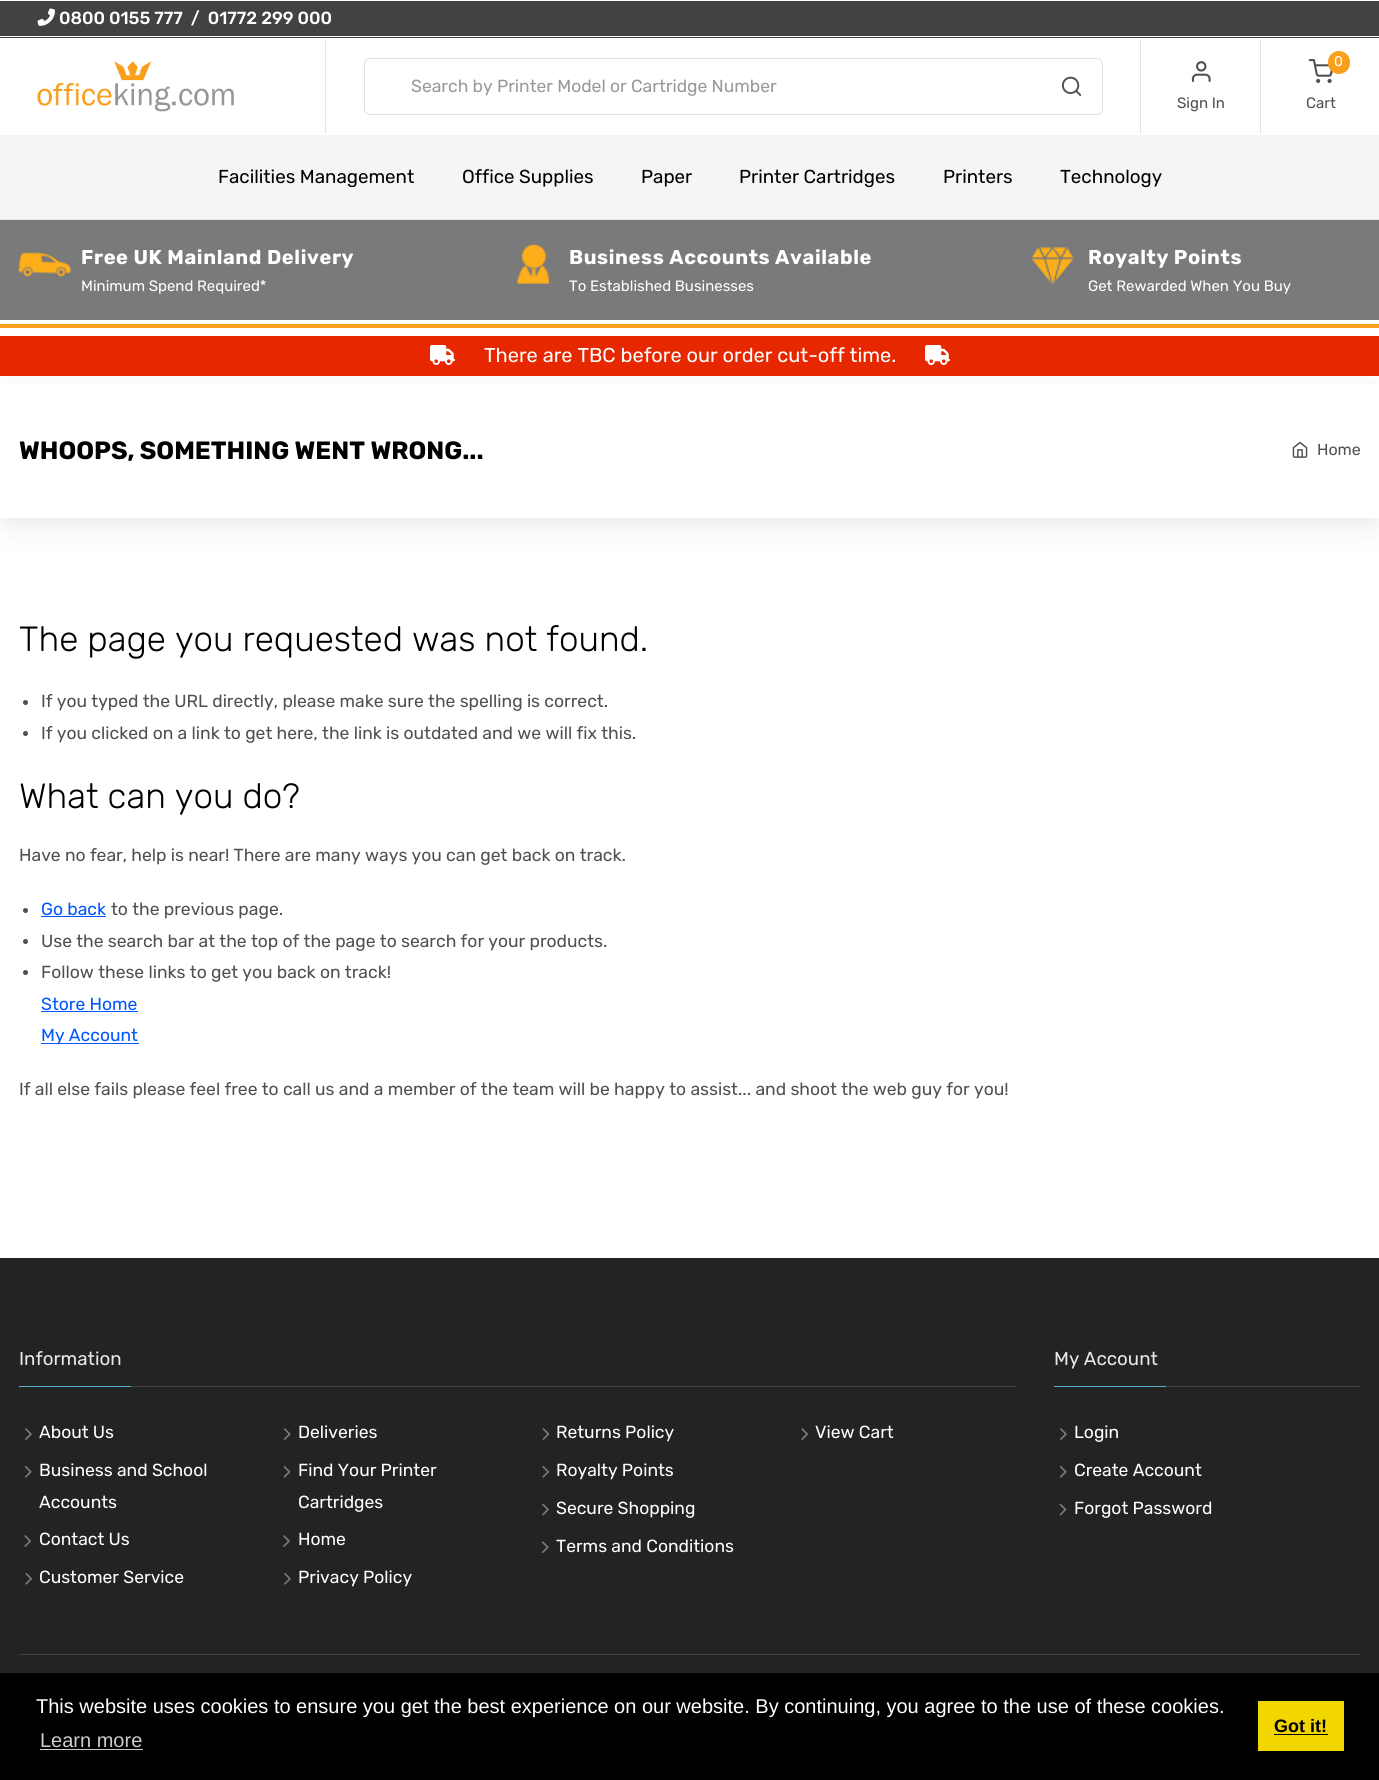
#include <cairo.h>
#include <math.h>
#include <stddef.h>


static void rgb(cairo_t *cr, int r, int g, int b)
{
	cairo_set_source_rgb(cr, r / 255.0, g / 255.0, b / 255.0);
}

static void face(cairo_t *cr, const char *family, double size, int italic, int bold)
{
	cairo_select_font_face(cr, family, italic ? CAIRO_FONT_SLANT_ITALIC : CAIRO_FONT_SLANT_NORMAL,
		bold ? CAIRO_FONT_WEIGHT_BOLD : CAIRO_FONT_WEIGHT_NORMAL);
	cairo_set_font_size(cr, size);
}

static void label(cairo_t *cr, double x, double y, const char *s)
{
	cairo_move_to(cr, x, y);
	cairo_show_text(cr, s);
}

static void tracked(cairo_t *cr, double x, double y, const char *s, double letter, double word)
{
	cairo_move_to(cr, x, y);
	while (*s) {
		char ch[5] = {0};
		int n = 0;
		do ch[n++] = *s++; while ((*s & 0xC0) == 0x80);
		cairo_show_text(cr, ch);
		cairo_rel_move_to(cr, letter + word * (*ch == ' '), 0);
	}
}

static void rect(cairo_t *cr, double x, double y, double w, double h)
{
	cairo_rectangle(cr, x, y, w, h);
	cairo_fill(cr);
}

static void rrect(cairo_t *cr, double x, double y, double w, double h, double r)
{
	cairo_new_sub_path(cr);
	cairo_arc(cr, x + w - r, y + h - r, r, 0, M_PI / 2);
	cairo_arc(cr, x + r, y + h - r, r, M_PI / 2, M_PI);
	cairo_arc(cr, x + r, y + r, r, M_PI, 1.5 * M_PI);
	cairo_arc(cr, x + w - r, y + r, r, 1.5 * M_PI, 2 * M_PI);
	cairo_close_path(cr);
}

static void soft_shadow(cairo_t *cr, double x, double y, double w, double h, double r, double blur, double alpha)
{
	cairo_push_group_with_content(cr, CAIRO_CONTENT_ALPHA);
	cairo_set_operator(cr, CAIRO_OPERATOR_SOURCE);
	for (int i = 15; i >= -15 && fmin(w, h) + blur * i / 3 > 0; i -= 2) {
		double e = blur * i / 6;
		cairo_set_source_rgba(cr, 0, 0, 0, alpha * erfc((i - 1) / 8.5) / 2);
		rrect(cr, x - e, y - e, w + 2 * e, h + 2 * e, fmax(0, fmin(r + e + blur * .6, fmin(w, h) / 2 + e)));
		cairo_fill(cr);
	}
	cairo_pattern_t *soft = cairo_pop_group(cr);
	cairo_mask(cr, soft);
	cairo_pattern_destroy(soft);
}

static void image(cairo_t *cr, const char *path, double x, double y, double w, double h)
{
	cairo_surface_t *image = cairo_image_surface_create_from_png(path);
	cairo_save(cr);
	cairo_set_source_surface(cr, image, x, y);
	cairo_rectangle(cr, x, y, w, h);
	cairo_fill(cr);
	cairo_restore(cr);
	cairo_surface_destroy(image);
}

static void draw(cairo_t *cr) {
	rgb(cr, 255, 255, 255);
	cairo_paint(cr);
	rgb(cr, 66, 66, 66);
	rect(cr, 0, 1, 1379, 37);
	rgb(cr, 255, 255, 255);
	rect(cr, 0, 36, 1379, 1);
	image(cr, "image0.png", 37, 8, 18, 18);
	face(cr, "Rubik Medium", 17.5, 0, 0);
	label(cr, 59, 24, "0800 0155 777  /  01772 299 000");
	rgb(cr, 229, 229, 229);
	rect(cr, 325, 39, 1, 95);
	image(cr, "image1.png", 37, 61, 197, 51);
	rrect(cr, 364.5, 58.5, 738, 56, 5.5);
	rgb(cr, 224, 224, 224);
	cairo_set_line_width(cr, 1);
	cairo_stroke(cr);
	face(cr, "Rubik", 17.5, 0, 0);
	rgb(cr, 153, 153, 153);
	label(cr, 411, 92, "Search by Printer Model or Cartridge Number");
	image(cr, "image2.png", 1061, 76, 21, 20);
	rgb(cr, 229, 229, 229);
	rect(cr, 1140, 39, 1, 95);
	image(cr, "image3.png", 1191, 61, 20, 21);
	face(cr, "Rubik", 15, 0, 0);
	rgb(cr, 80, 80, 80);
	label(cr, 1177, 108, "Sign In");
	rgb(cr, 229, 229, 229);
	rect(cr, 1260, 39, 1, 95);
	image(cr, "image4.png", 1308, 59, 25, 24);
	rgb(cr, 249, 159, 27);
	rrect(cr, 1328, 51, 22, 23, 11);
	cairo_fill(cr);
	face(cr, "Rubik", 14, 0, 0);
	rgb(cr, 255, 255, 255);
	label(cr, 1334, 66, "0");
	face(cr, "Rubik", 15, 0, 0);
	rgb(cr, 80, 80, 80);
	label(cr, 1306, 108, "Cart");
	rgb(cr, 245, 245, 245);
	rect(cr, 0, 135, 1379, 84);
	rgb(cr, 229, 229, 229);
	rect(cr, 0, 219, 1379, 1);
	face(cr, "Rubik", 18.75, 0, 0);
	rgb(cr, 0, 0, 0);
	label(cr, 218, 183, "Facilities Management");
	label(cr, 462, 183, "Office Supplies");
	label(cr, 641, 183, "Paper");
	label(cr, 739, 183, "Printer Cartridges");
	label(cr, 943, 183, "Printers");
	label(cr, 1060, 183, "Technology");
	rgb(cr, 122, 122, 122);
	rect(cr, 0, 220, 1379, 100);
	image(cr, "image5.png", 18, 251, 54, 26);
	face(cr, "Rubik", 20, 0, 1);
	rgb(cr, 255, 255, 255);
	tracked(cr, 81, 264, "Free UK Mainland Delivery", 0.6, 0);
	face(cr, "Rubik", 15, 0, 0);
	label(cr, 81, 291, "Minimum Spend Required*");
	image(cr, "image6.png", 516, 244, 34, 41);
	face(cr, "Rubik", 20, 0, 1);
	tracked(cr, 569, 264, "Business Accounts Available", 0.6, 0);
	face(cr, "Rubik", 15, 0, 0);
	label(cr, 569, 291, "To Established Businesses");
	image(cr, "image7.png", 1030, 245, 45, 40);
	face(cr, "Rubik", 20, 0, 1);
	tracked(cr, 1088, 264, "Royalty Points", 0.6, 0);
	face(cr, "Rubik", 15, 0, 0);
	label(cr, 1088, 291, "Get Rewarded When You Buy");
	rgb(cr, 249, 159, 27);
	rect(cr, 0, 324, 1379, 4);
	rgb(cr, 0, 0, 0);
	soft_shadow(cr, 8, 400, 1365, 119, 0, 19, 0.12);
	rgb(cr, 230, 39, 0);
	rect(cr, 0, 336, 1379, 40);
	image(cr, "image8.png", 430, 345, 25, 20);
	face(cr, "Rubik", 20, 0, 0);
	rgb(cr, 255, 255, 255);
	label(cr, 484, 362, "There are TBC before our order cut-off time.");
	image(cr, "image8.png", 925, 345, 25, 20);
	rect(cr, 0, 384, 1379, 134);
	face(cr, "Rubik", 25, 0, 1);
	rgb(cr, 0, 0, 0);
	label(cr, 19, 459, "WHOOPS, SOMETHING WENT WRONG...");
	image(cr, "image9.png", 1292, 441, 16, 17);
	face(cr, "Rubik", 16, 0, 0);
	rgb(cr, 80, 80, 80);
	label(cr, 1317, 455, "Home");
	face(cr, "Rubik Light", 35, 0, 0);
	rgb(cr, 0, 0, 0);
	label(cr, 19, 651, "The page you requested was not found.");
	rgb(cr, 80, 80, 80);
	cairo_new_path(cr);
	cairo_arc(cr, 25.5, 702.5, 2.5, 0, 2 * M_PI);
	cairo_fill(cr);
	face(cr, "Rubik", 17.5, 0, 0);
	label(cr, 41, 707, "If you typed the URL directly, please make sure the spelling is correct.");
	cairo_new_path(cr);
	cairo_arc(cr, 25.5, 733.5, 2.5, 0, 2 * M_PI);
	cairo_fill(cr);
	label(cr, 41, 739, "If you clicked on a link to get here, the link is outdated and we will fix this.");
	face(cr, "Rubik Light", 35, 0, 0);
	rgb(cr, 0, 0, 0);
	label(cr, 19, 808, "What can you do?");
	face(cr, "Rubik", 17.5, 0, 0);
	rgb(cr, 80, 80, 80);
	label(cr, 19, 861, "Have no fear, help is near! There are many ways you can get back on track.");
	cairo_new_path(cr);
	cairo_arc(cr, 25.5, 910.5, 2.5, 0, 2 * M_PI);
	cairo_fill(cr);
	rgb(cr, 0, 85, 255);
	label(cr, 41, 915, "Go back");
	rect(cr, 41, 916, 65, 1);
	rgb(cr, 80, 80, 80);
	label(cr, 111, 915, "to the previous page.");
	cairo_new_path(cr);
	cairo_arc(cr, 25.5, 941.5, 2.5, 0, 2 * M_PI);
	cairo_fill(cr);
	label(cr, 41, 947, "Use the search bar at the top of the page to search for your products.");
	cairo_new_path(cr);
	cairo_arc(cr, 25.5, 972.5, 2.5, 0, 2 * M_PI);
	cairo_fill(cr);
	label(cr, 41, 978, "Follow these links to get you back on track!");
	rgb(cr, 0, 85, 255);
	label(cr, 41, 1010, "Store Home");
	rect(cr, 41, 1011, 97, 1);
	rect(cr, 41, 1043, 98, 1);
	label(cr, 41, 1041, "My Account");
	rgb(cr, 80, 80, 80);
	label(cr, 19, 1095, "If all else fails please feel free to call us and a member of the team will be happy to assist... and shoot the web guy for you!");
	rgb(cr, 35, 35, 35);
	rect(cr, 0, 1258, 1379, 415);
	rgb(cr, 64, 64, 64);
	rect(cr, 131, 1386, 885, 1);
	face(cr, "Rubik", 18.75, 0, 0);
	rgb(cr, 233, 233, 233);
	label(cr, 19, 1365, "Information");
	rgb(cr, 87, 177, 201);
	rect(cr, 19, 1386, 112, 1);
	image(cr, "image10.png", 25, 1428, 7, 12);
	face(cr, "Rubik", 17.5, 0, 0);
	rgb(cr, 255, 255, 255);
	label(cr, 39, 1438, "About Us");
	image(cr, "image11.png", 24, 1466, 8, 12);
	label(cr, 39, 1476, "Business and School");
	label(cr, 39, 1508, "Accounts");
	image(cr, "image12.png", 24, 1535, 7, 12);
	label(cr, 39, 1545, "Contact Us");
	image(cr, "image13.png", 25, 1573, 7, 12);
	label(cr, 39, 1583, "Customer Service");
	image(cr, "image14.png", 283, 1428, 8, 12);
	label(cr, 298, 1438, "Deliveries");
	image(cr, "image15.png", 283, 1466, 8, 12);
	label(cr, 298, 1476, "Find Your Printer");
	label(cr, 298, 1508, "Cartridges");
	image(cr, "image16.png", 283, 1535, 7, 12);
	label(cr, 298, 1545, "Home");
	image(cr, "image17.png", 284, 1573, 7, 12);
	label(cr, 298, 1583, "Privacy Policy");
	image(cr, "image18.png", 542, 1428, 8, 12);
	label(cr, 556, 1438, "Returns Policy");
	image(cr, "image19.png", 542, 1466, 7, 12);
	label(cr, 556, 1476, "Royalty Points");
	image(cr, "image20.png", 542, 1503, 7, 13);
	label(cr, 556, 1514, "Secure Shopping");
	image(cr, "image21.png", 542, 1541, 7, 13);
	label(cr, 556, 1552, "Terms and Conditions");
	image(cr, "image22.png", 801, 1428, 7, 12);
	label(cr, 815, 1438, "View Cart");
	rgb(cr, 64, 64, 64);
	rect(cr, 1166, 1386, 195, 1);
	face(cr, "Rubik", 18.75, 0, 0);
	rgb(cr, 233, 233, 233);
	label(cr, 1054, 1365, "My Account");
	rgb(cr, 87, 177, 201);
	rect(cr, 1054, 1386, 112, 1);
	image(cr, "image10.png", 1060, 1428, 7, 12);
	face(cr, "Rubik", 17.5, 0, 0);
	rgb(cr, 255, 255, 255);
	label(cr, 1074, 1438, "Login");
	image(cr, "image11.png", 1059, 1466, 8, 12);
	label(cr, 1074, 1476, "Create Account");
	image(cr, "image23.png", 1059, 1503, 8, 13);
	label(cr, 1074, 1514, "Forgot Password");
	rgb(cr, 64, 64, 64);
	rect(cr, 19, 1654, 1342, 1);
	rgb(cr, 0, 0, 0);
	rect(cr, 0, 1673, 1379, 107);
	face(cr, "Liberation Sans", 20, 0, 0);
	rgb(cr, 255, 255, 255);
	label(cr, 36, 1713, "This website uses cookies to ensure you get the best experience on our website. By continuing, you agree to the use of these cookies.");
	rgb(cr, 204, 204, 204);
	label(cr, 40, 1747, "Learn more");
	rect(cr, 40, 1749, 103, 1);
	rgb(cr, 241, 214, 0);
	rect(cr, 1258, 1701, 86, 50);
	face(cr, "Liberation Sans", 18, 0, 1);
	rgb(cr, 0, 0, 0);
	label(cr, 1274, 1732, "Got it!");
	rect(cr, 1274, 1734, 54, 1);
}

int main(void) {
	cairo_surface_t *surface = cairo_image_surface_create(CAIRO_FORMAT_RGB24, 1379, 1780);
	cairo_t *cr = cairo_create(surface);
	cairo_font_options_t *options = cairo_font_options_create();
	cairo_font_options_set_hint_metrics(options, CAIRO_HINT_METRICS_OFF);
	cairo_font_options_set_hint_style(options, CAIRO_HINT_STYLE_NONE);
	cairo_set_font_options(cr, options);
	cairo_set_miter_limit(cr, 4);
	draw(cr);
	cairo_surface_write_to_png(surface, "render.png");
	cairo_font_options_destroy(options);
	cairo_destroy(cr);
	cairo_surface_destroy(surface);
	return 0;
}
